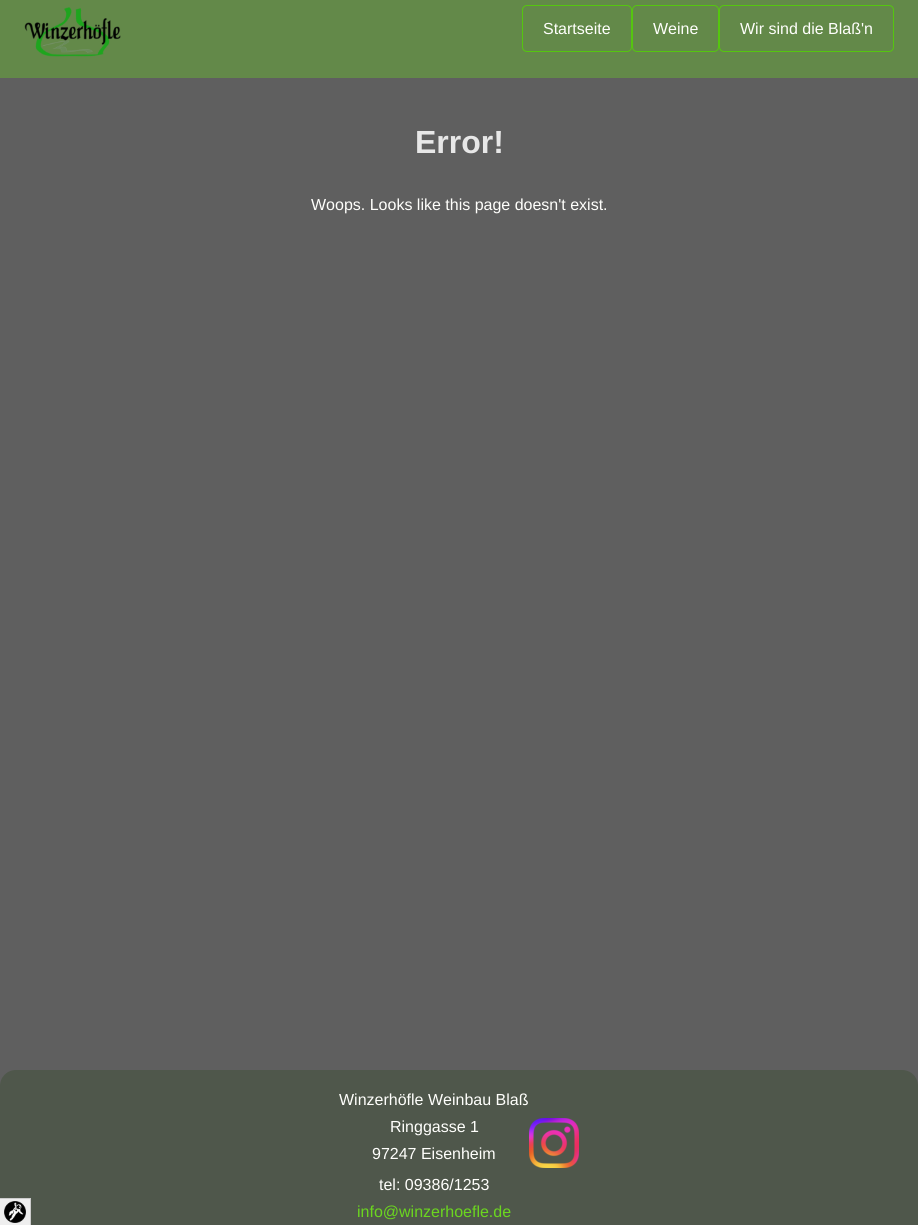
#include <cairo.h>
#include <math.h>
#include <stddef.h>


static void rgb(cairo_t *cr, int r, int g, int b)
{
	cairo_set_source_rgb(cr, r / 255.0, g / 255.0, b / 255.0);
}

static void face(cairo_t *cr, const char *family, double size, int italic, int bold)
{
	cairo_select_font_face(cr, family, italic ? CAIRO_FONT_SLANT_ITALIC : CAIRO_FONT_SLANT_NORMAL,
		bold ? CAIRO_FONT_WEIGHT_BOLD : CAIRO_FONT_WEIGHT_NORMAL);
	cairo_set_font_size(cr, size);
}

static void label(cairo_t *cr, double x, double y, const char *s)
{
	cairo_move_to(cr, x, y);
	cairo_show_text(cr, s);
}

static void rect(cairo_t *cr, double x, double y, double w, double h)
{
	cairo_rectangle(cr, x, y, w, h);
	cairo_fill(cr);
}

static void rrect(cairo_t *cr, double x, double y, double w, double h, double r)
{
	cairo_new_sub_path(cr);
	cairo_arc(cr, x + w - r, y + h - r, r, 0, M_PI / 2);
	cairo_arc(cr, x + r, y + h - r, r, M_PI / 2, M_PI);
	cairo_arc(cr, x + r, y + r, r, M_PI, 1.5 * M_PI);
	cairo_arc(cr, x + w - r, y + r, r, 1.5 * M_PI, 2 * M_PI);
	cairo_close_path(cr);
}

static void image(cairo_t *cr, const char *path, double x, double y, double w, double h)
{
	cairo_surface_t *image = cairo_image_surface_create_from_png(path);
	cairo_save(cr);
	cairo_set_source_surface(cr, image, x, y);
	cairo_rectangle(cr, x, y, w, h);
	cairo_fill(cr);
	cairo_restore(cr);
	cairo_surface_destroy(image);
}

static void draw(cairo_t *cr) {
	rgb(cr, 95, 95, 95);
	cairo_paint(cr);
	rgb(cr, 99, 137, 73);
	rect(cr, 0, 0, 918, 78);
	image(cr, "image0.png", 24, 7, 97, 50);
	rrect(cr, 522.5, 5.5, 109, 46, 4.5);
	rgb(cr, 85, 198, 15);
	cairo_set_line_width(cr, 1);
	cairo_stroke(cr);
	face(cr, "Liberation Sans", 16, 0, 0);
	rgb(cr, 255, 255, 252);
	label(cr, 543, 34, "Startseite");
	rrect(cr, 632.5, 5.5, 86, 46, 4.5);
	rgb(cr, 85, 198, 15);
	cairo_stroke(cr);
	rgb(cr, 255, 255, 252);
	label(cr, 653, 34, "Weine");
	rrect(cr, 719.5, 5.5, 174, 46, 4.5);
	rgb(cr, 85, 198, 15);
	cairo_stroke(cr);
	rgb(cr, 255, 255, 252);
	label(cr, 740, 34, "Wir sind die Blaß'n");
	rgb(cr, 79, 87, 75);
	cairo_new_path(cr);
	cairo_move_to(cr, 16, 1070);
	cairo_line_to(cr, 902, 1070);
	cairo_curve_to(cr, 911, 1070, 918, 1077, 918, 1086);
	cairo_line_to(cr, 918, 1225);
	cairo_line_to(cr, 0, 1225);
	cairo_line_to(cr, 0, 1086);
	cairo_curve_to(cr, 0, 1077, 7, 1070, 16, 1070);
	cairo_close_path(cr);
	cairo_fill(cr);
	rgb(cr, 238, 238, 238);
	rect(cr, 0, 1199, 30, 26);
	rgb(cr, 204, 204, 204);
	rect(cr, 0, 1198, 31, 1);
	rect(cr, 30, 1198, 1, 27);
	image(cr, "image1.png", 4, 1201, 22, 22);
	face(cr, "Liberation Sans", 32, 0, 1);
	rgb(cr, 231, 231, 231);
	label(cr, 415, 153, "Error!");
	face(cr, "Liberation Sans", 16, 0, 0);
	rgb(cr, 255, 255, 252);
	label(cr, 311, 210, "Woops. Looks like this page doesn't exist.");
	label(cr, 339, 1105, "Winzerhöfle Weinbau Blaß");
	label(cr, 390, 1132, "Ringgasse 1");
	label(cr, 372, 1159, "97247 Eisenheim");
	label(cr, 379, 1190, "tel: 09386/1253");
	rgb(cr, 107, 214, 31);
	label(cr, 357, 1217, "info@winzerhoefle.de");
	image(cr, "image2.png", 529, 1118, 50, 50);
}

int main(void) {
	cairo_surface_t *surface = cairo_image_surface_create(CAIRO_FORMAT_RGB24, 918, 1225);
	cairo_t *cr = cairo_create(surface);
	cairo_font_options_t *options = cairo_font_options_create();
	cairo_font_options_set_hint_metrics(options, CAIRO_HINT_METRICS_OFF);
	cairo_font_options_set_hint_style(options, CAIRO_HINT_STYLE_NONE);
	cairo_set_font_options(cr, options);
	cairo_set_miter_limit(cr, 4);
	draw(cr);
	cairo_surface_write_to_png(surface, "render.png");
	cairo_font_options_destroy(options);
	cairo_destroy(cr);
	cairo_surface_destroy(surface);
	return 0;
}
